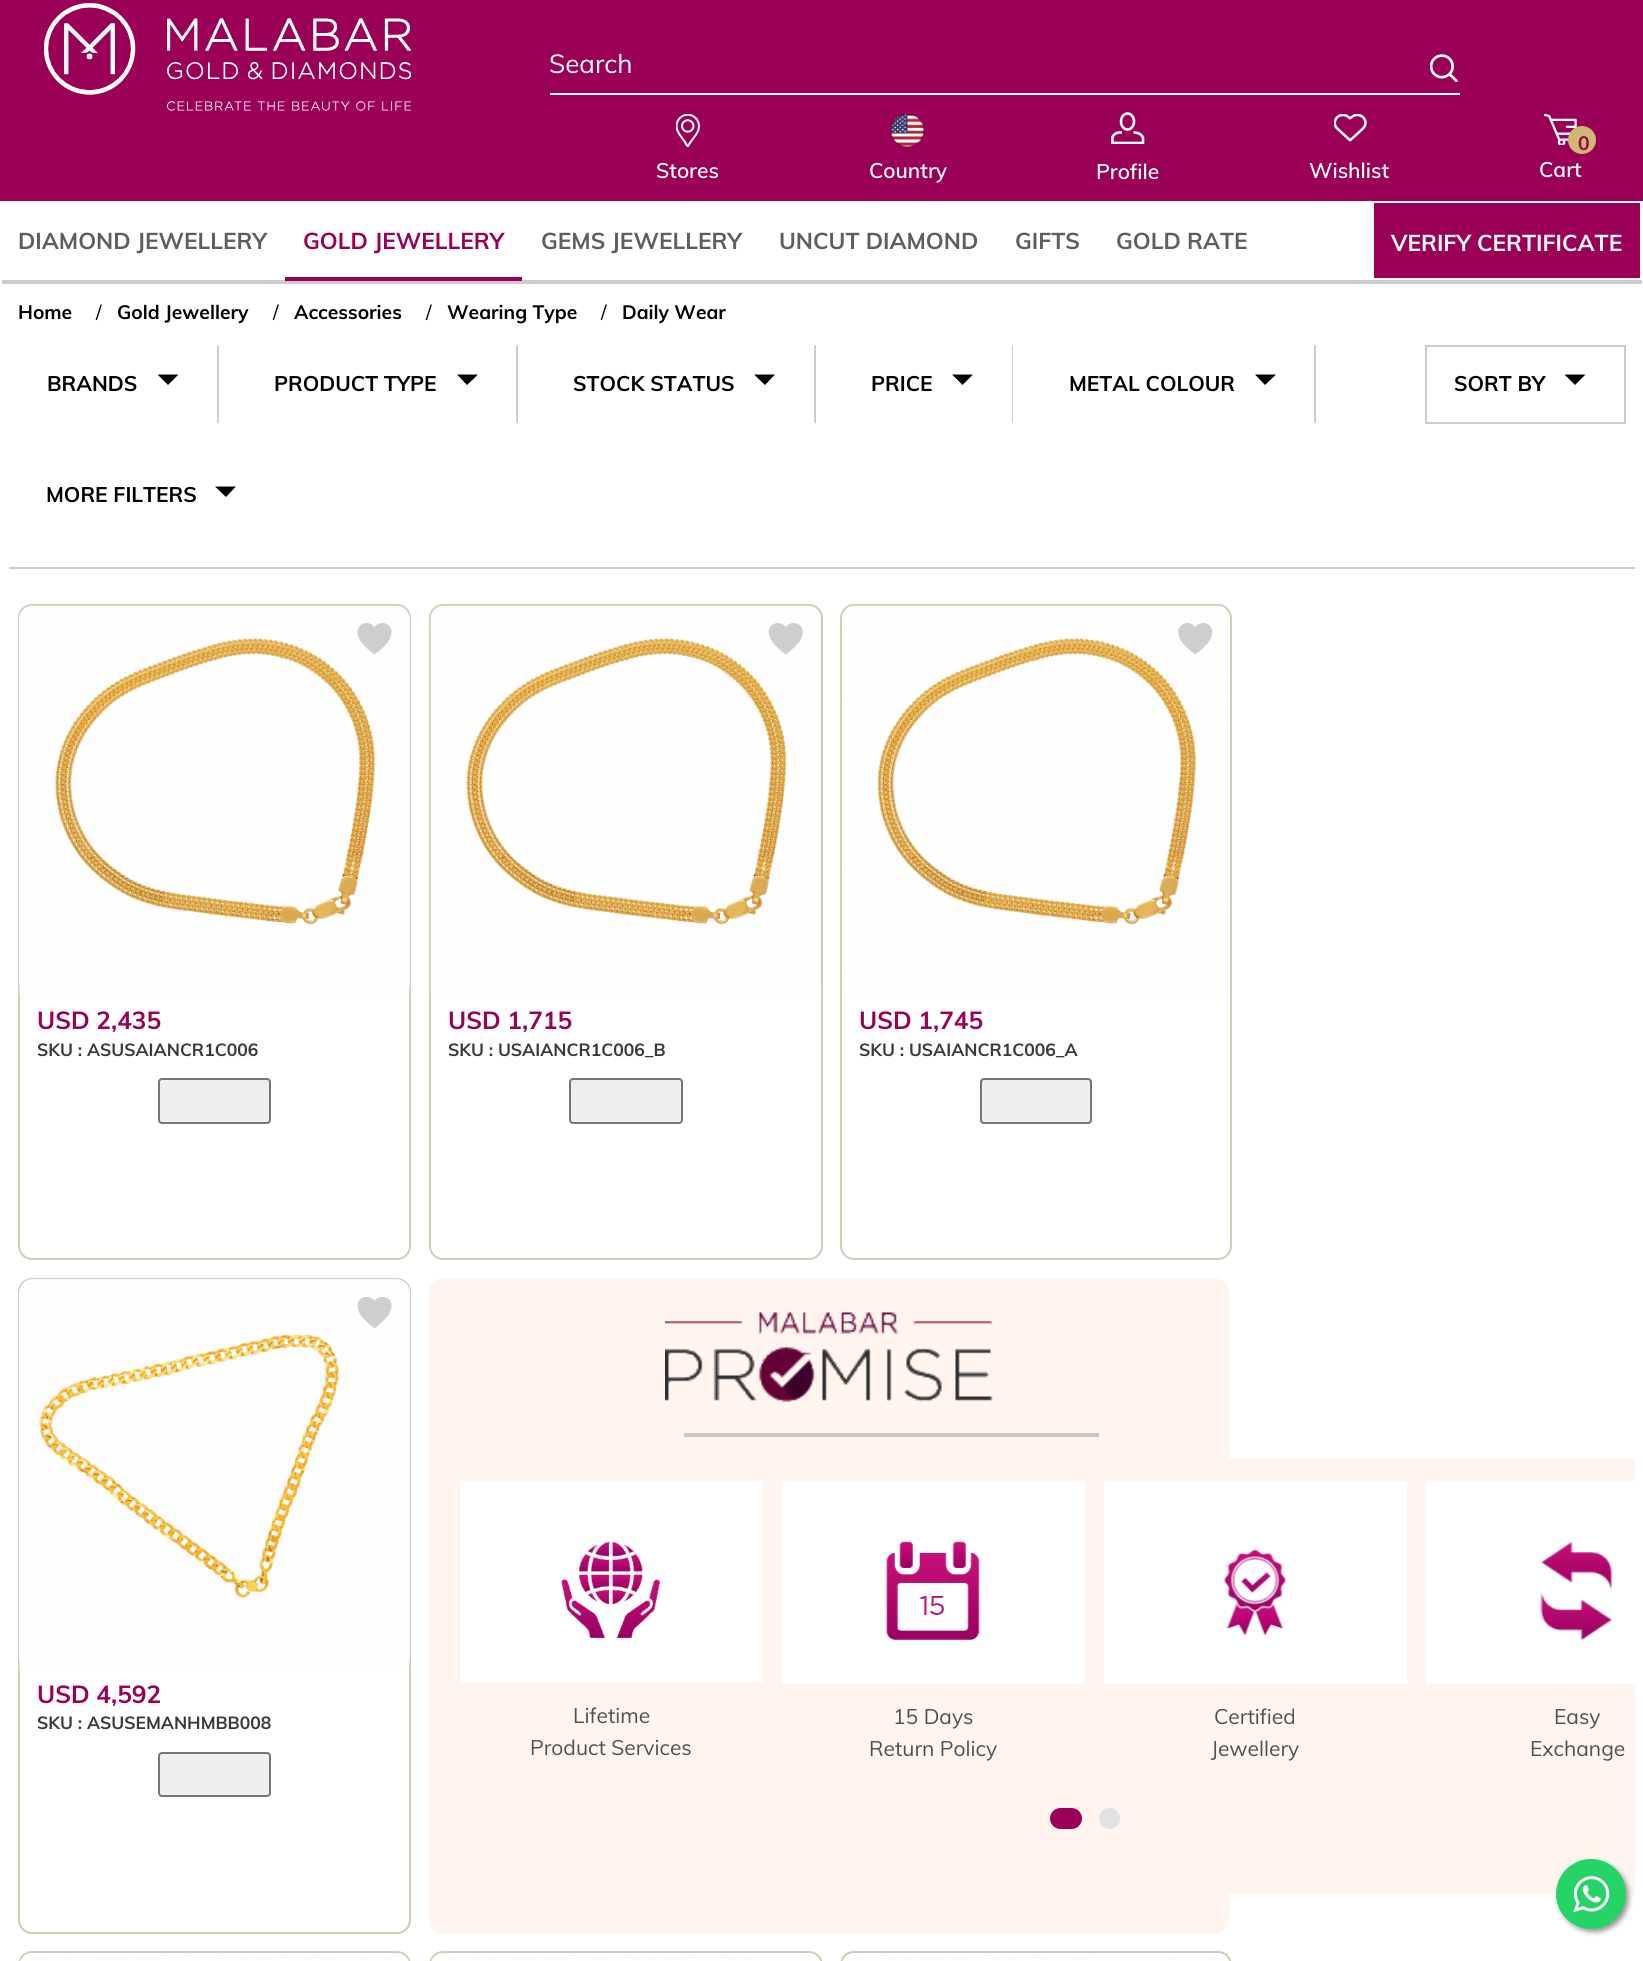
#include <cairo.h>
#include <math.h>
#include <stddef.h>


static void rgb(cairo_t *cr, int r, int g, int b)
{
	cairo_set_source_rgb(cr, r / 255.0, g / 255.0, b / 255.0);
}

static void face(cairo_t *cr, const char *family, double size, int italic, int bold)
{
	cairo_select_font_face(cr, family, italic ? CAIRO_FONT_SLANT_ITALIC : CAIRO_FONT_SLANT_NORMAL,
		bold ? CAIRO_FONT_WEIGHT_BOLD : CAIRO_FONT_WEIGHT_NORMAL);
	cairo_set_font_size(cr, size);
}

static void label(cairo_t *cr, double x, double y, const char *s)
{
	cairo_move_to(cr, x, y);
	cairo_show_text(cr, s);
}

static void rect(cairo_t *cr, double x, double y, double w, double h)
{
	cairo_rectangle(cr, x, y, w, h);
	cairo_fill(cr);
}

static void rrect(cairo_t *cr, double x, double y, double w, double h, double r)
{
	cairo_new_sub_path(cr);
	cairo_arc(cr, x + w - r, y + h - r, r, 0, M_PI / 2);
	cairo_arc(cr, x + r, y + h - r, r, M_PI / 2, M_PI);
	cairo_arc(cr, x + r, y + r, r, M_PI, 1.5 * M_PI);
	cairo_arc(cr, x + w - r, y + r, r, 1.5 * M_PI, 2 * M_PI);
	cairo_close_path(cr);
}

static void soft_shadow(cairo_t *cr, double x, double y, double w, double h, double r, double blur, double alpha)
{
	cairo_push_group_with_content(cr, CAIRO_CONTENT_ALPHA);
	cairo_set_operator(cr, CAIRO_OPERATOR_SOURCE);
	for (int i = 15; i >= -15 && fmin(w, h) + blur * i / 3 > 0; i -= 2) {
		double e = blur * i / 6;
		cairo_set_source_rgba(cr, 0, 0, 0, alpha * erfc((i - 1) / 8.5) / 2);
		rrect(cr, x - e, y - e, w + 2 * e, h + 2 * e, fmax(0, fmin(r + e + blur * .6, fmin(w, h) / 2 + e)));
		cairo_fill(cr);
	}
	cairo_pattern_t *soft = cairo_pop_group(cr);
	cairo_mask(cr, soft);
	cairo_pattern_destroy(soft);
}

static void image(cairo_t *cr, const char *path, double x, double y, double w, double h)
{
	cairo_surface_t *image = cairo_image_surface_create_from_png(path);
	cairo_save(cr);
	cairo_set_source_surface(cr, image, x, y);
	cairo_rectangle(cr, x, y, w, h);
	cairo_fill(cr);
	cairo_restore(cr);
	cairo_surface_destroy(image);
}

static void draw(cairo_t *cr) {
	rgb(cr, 255, 255, 255);
	cairo_paint(cr);
	rgb(cr, 154, 0, 86);
	rect(cr, 0, 0, 1643, 201);
	image(cr, "image0.png", 44, 3, 367, 108);
	rgb(cr, 255, 255, 255);
	rect(cr, 550, 93, 910, 2);
	face(cr, "Muli", 26, 0, 0);
	label(cr, 549, 73, "Search");
	image(cr, "image1.png", 1430, 54, 28, 28);
	image(cr, "image2.png", 676, 114, 24, 33);
	face(cr, "Muli SemiBold", 21, 0, 0);
	label(cr, 656, 178, "Stores");
	image(cr, "image3.png", 891, 114, 33, 33);
	label(cr, 869, 178, "Country");
	cairo_new_path(cr);
	cairo_move_to(cr, 1127.5, 113.5);
	cairo_curve_to(cr, 1131, 113.5, 1134, 117, 1134, 121.5);
	cairo_curve_to(cr, 1134, 126, 1131, 129.5, 1127.5, 129.5);
	cairo_curve_to(cr, 1124, 129.5, 1121, 126, 1121, 121.5);
	cairo_curve_to(cr, 1121, 117, 1124, 113.5, 1127.5, 113.5);
	cairo_close_path(cr);
	cairo_set_line_width(cr, 2.6);
	cairo_stroke(cr);
	cairo_save(cr);
	cairo_rectangle(cr, 1111, 112, 34, 32);
	cairo_clip(cr);
	cairo_new_path(cr);
	cairo_move_to(cr, 1133.5, 132.5);
	cairo_curve_to(cr, 1133.5, 132.5, 1140.5, 132, 1143, 137.5);
	cairo_line_to(cr, 1143, 143);
	cairo_line_to(cr, 1112.5, 143);
	cairo_line_to(cr, 1112.5, 137);
	cairo_curve_to(cr, 1112.5, 137, 1114.5, 131.5, 1122, 132.5);
	cairo_stroke(cr);
	cairo_restore(cr);
	label(cr, 1096, 179, "Profile");
	image(cr, "image4.png", 1334, 114, 33, 28);
	label(cr, 1309, 178, "Wishlist");
	image(cr, "image5.png", 1544, 114, 33, 31);
	rgb(cr, 207, 184, 115);
	cairo_arc(cr, 1582, 140, 14, 0, 2 * M_PI);
	cairo_fill(cr);
	face(cr, "Muli", 19.25, 0, 1);
	rgb(cr, 154, 0, 86);
	label(cr, 1578, 150, "0");
	face(cr, "Muli SemiBold", 21, 0, 0);
	rgb(cr, 255, 255, 255);
	label(cr, 1539, 177, "Cart");
	rgb(cr, 204, 204, 204);
	rect(cr, 2, 280, 1640, 4);
	face(cr, "Muli", 22.75, 0, 1);
	rgb(cr, 94, 94, 94);
	label(cr, 18, 249, "DIAMOND JEWELLERY");
	rgb(cr, 154, 0, 86);
	rect(cr, 285, 277, 237, 4);
	label(cr, 303, 249, "GOLD JEWELLERY");
	rgb(cr, 94, 94, 94);
	label(cr, 541, 249, "GEMS JEWELLERY");
	label(cr, 779, 249, "UNCUT DIAMOND");
	label(cr, 1015, 249, "GIFTS");
	label(cr, 1116, 249, "GOLD RATE");
	rgb(cr, 154, 0, 86);
	rect(cr, 1374, 203, 266, 75);
	rgb(cr, 255, 255, 255);
	label(cr, 1391, 251, "VERIFY CERTIFICATE");
	face(cr, "Muli", 19.25, 0, 1);
	rgb(cr, 0, 0, 0);
	label(cr, 18, 319, "Home");
	face(cr, "Muli", 19.25, 0, 0);
	label(cr, 96, 319, "/");
	face(cr, "Muli", 19.25, 0, 1);
	label(cr, 117, 319, "Gold Jewellery");
	face(cr, "Muli", 19.25, 0, 0);
	label(cr, 273, 319, "/");
	face(cr, "Muli", 19.25, 0, 1);
	label(cr, 294, 319, "Accessories");
	face(cr, "Muli", 19.25, 0, 0);
	label(cr, 426, 319, "/");
	face(cr, "Muli", 19.25, 0, 1);
	label(cr, 447, 319, "Wearing Type");
	face(cr, "Muli", 19.25, 0, 0);
	label(cr, 601, 319, "/");
	face(cr, "Muli", 19.25, 0, 1);
	label(cr, 622, 319, "Daily Wear");
	rgb(cr, 204, 204, 204);
	rect(cr, 9, 567, 1626, 2);
	cairo_new_path(cr);
	cairo_move_to(cr, 219, 345);
	cairo_line_to(cr, 219, 424);
	cairo_line_to(cr, 217, 422);
	cairo_line_to(cr, 217, 346);
	cairo_close_path(cr);
	cairo_fill(cr);
	face(cr, "Muli", 21, 0, 1);
	rgb(cr, 0, 0, 0);
	label(cr, 47, 391, "BRANDS");
	cairo_new_path(cr);
	cairo_move_to(cr, 157.5, 374.5);
	cairo_line_to(cr, 178.5, 374.5);
	cairo_line_to(cr, 168, 385);
	cairo_close_path(cr);
	cairo_fill(cr);
	rgb(cr, 204, 204, 204);
	cairo_new_path(cr);
	cairo_move_to(cr, 518, 345);
	cairo_line_to(cr, 518, 424);
	cairo_line_to(cr, 516, 422);
	cairo_line_to(cr, 516, 346);
	cairo_close_path(cr);
	cairo_fill(cr);
	rgb(cr, 0, 0, 0);
	label(cr, 274, 391, "PRODUCT TYPE");
	cairo_new_path(cr);
	cairo_move_to(cr, 457, 374.5);
	cairo_line_to(cr, 478, 374.5);
	cairo_line_to(cr, 467, 385);
	cairo_close_path(cr);
	cairo_fill(cr);
	rgb(cr, 204, 204, 204);
	cairo_new_path(cr);
	cairo_move_to(cr, 816, 345);
	cairo_line_to(cr, 816, 424);
	cairo_line_to(cr, 814, 422);
	cairo_line_to(cr, 814, 346);
	cairo_close_path(cr);
	cairo_fill(cr);
	rgb(cr, 0, 0, 0);
	label(cr, 573, 391, "STOCK STATUS");
	cairo_new_path(cr);
	cairo_move_to(cr, 754, 374.5);
	cairo_line_to(cr, 775, 374.5);
	cairo_line_to(cr, 765, 385);
	cairo_close_path(cr);
	cairo_fill(cr);
	rgb(cr, 204, 204, 204);
	cairo_new_path(cr);
	cairo_move_to(cr, 1013, 345);
	cairo_line_to(cr, 1013, 424);
	cairo_line_to(cr, 1012, 422);
	cairo_line_to(cr, 1012, 346);
	cairo_close_path(cr);
	cairo_fill(cr);
	rgb(cr, 0, 0, 0);
	label(cr, 871, 391, "PRICE");
	cairo_new_path(cr);
	cairo_move_to(cr, 952, 374.5);
	cairo_line_to(cr, 973, 374.5);
	cairo_line_to(cr, 962.5, 385);
	cairo_close_path(cr);
	cairo_fill(cr);
	rgb(cr, 204, 204, 204);
	cairo_new_path(cr);
	cairo_move_to(cr, 1316, 345);
	cairo_line_to(cr, 1316, 424);
	cairo_line_to(cr, 1314, 422);
	cairo_line_to(cr, 1314, 346);
	cairo_close_path(cr);
	cairo_fill(cr);
	rgb(cr, 0, 0, 0);
	label(cr, 1069, 391, "METAL COLOUR");
	cairo_new_path(cr);
	cairo_move_to(cr, 1255, 374.5);
	cairo_line_to(cr, 1276, 374.5);
	cairo_line_to(cr, 1265, 385);
	cairo_close_path(cr);
	cairo_fill(cr);
	cairo_rectangle(cr, 1426, 346, 199, 77);
	rgb(cr, 204, 204, 204);
	cairo_set_line_width(cr, 2);
	cairo_stroke(cr);
	rgb(cr, 0, 0, 0);
	label(cr, 1454, 391, "SORT BY");
	cairo_new_path(cr);
	cairo_move_to(cr, 1564.5, 374.5);
	cairo_line_to(cr, 1585.5, 374.5);
	cairo_line_to(cr, 1575, 385);
	cairo_close_path(cr);
	cairo_fill(cr);
	label(cr, 46, 502, "MORE FILTERS");
	cairo_new_path(cr);
	cairo_move_to(cr, 215, 486.5);
	cairo_line_to(cr, 236, 486.5);
	cairo_line_to(cr, 226, 497);
	cairo_close_path(cr);
	cairo_fill(cr);
	rrect(cr, 19, 605, 391, 654, 13);
	rgb(cr, 211, 203, 182);
	cairo_stroke(cr);
	rgb(cr, 249, 249, 249);
	rrect(cr, 19, 606, 391, 390, 14);
	cairo_fill(cr);
	image(cr, "image6.png", 19, 605, 391, 391);
	image(cr, "image7.png", 357, 623, 35, 32);
	face(cr, "Muli", 24.5, 0, 1);
	rgb(cr, 154, 0, 86);
	label(cr, 37, 1029, "USD 2,435");
	face(cr, "Muli", 17.5, 0, 1);
	rgb(cr, 57, 57, 57);
	label(cr, 37, 1056, "SKU : ASUSAIANCR1C006");
	rgb(cr, 239, 239, 239);
	rrect(cr, 159, 1079, 111, 44, 3);
	cairo_fill_preserve(cr);
	rgb(cr, 118, 118, 118);
	cairo_stroke(cr);
	rrect(cr, 430, 605, 392, 654, 13);
	rgb(cr, 211, 203, 182);
	cairo_stroke(cr);
	rgb(cr, 249, 249, 249);
	rrect(cr, 431, 606, 390, 390, 14);
	cairo_fill(cr);
	image(cr, "image8.png", 430, 605, 390, 391);
	image(cr, "image9.png", 768, 623, 35, 32);
	face(cr, "Muli", 24.5, 0, 1);
	rgb(cr, 154, 0, 86);
	label(cr, 448, 1029, "USD 1,715");
	face(cr, "Muli", 17.5, 0, 1);
	rgb(cr, 57, 57, 57);
	label(cr, 448, 1056, "SKU : USAIANCR1C006_B");
	rgb(cr, 239, 239, 239);
	rrect(cr, 570, 1079, 112, 44, 3);
	cairo_fill_preserve(cr);
	rgb(cr, 118, 118, 118);
	cairo_stroke(cr);
	rrect(cr, 841, 605, 390, 654, 13);
	rgb(cr, 211, 203, 182);
	cairo_stroke(cr);
	rgb(cr, 249, 249, 249);
	rrect(cr, 842, 606, 388, 390, 14);
	cairo_fill(cr);
	image(cr, "image10.png", 841, 605, 390, 390);
	image(cr, "image11.png", 1178, 623, 35, 32);
	face(cr, "Muli", 24.5, 0, 1);
	rgb(cr, 154, 0, 86);
	label(cr, 859, 1029, "USD 1,745");
	face(cr, "Muli", 17.5, 0, 1);
	rgb(cr, 57, 57, 57);
	label(cr, 859, 1056, "SKU : USAIANCR1C006_A");
	rgb(cr, 239, 239, 239);
	rrect(cr, 981, 1079, 110, 44, 3);
	cairo_fill_preserve(cr);
	rgb(cr, 118, 118, 118);
	cairo_stroke(cr);
	rrect(cr, 19, 1279, 391, 654, 13);
	rgb(cr, 211, 203, 182);
	cairo_stroke(cr);
	rgb(cr, 249, 249, 249);
	rrect(cr, 19, 1279, 391, 391, 14);
	cairo_fill(cr);
	image(cr, "image12.png", 19, 1279, 391, 391);
	image(cr, "image13.png", 357, 1297, 35, 31);
	face(cr, "Muli", 24.5, 0, 1);
	rgb(cr, 154, 0, 86);
	label(cr, 37, 1703, "USD 4,592");
	face(cr, "Muli", 17.5, 0, 1);
	rgb(cr, 57, 57, 57);
	label(cr, 37, 1729, "SKU : ASUSEMANHMBB008");
	rgb(cr, 239, 239, 239);
	rrect(cr, 159, 1753, 111, 43, 3);
	cairo_fill_preserve(cr);
	rgb(cr, 118, 118, 118);
	cairo_stroke(cr);
	rgb(cr, 255, 245, 238);
	rrect(cr, 429, 1278, 800, 656, 14);
	cairo_fill(cr);
	image(cr, "image14.png", 665, 1312, 328, 90);
	rgb(cr, 205, 197, 191);
	rect(cr, 684, 1433, 415, 4);
	rgb(cr, 255, 245, 238);
	rect(cr, 1229, 1458, 406, 436);
	rgb(cr, 255, 255, 255);
	rect(cr, 460, 1481, 303, 201);
	image(cr, "image15.png", 561, 1541, 99, 98);
	face(cr, "Muli", 21, 0, 0);
	rgb(cr, 80, 80, 80);
	label(cr, 573, 1723, "Lifetime");
	label(cr, 530, 1755, "Product Services");
	rgb(cr, 255, 255, 255);
	rect(cr, 782, 1481, 303, 203);
	image(cr, "image16.png", 885, 1541, 95, 99);
	rgb(cr, 80, 80, 80);
	label(cr, 893, 1724, "15 Days");
	label(cr, 869, 1756, "Return Policy");
	rgb(cr, 255, 255, 255);
	rect(cr, 1104, 1481, 303, 203);
	image(cr, "image17.png", 1223, 1548, 64, 88);
	rgb(cr, 80, 80, 80);
	label(cr, 1214, 1724, "Certified");
	label(cr, 1211, 1756, "Jewellery");
	rgb(cr, 255, 255, 255);
	rect(cr, 1426, 1481, 209, 203);
	image(cr, "image18.png", 1540, 1541, 72, 99);
	rgb(cr, 80, 80, 80);
	label(cr, 1554, 1724, "Easy");
	label(cr, 1530, 1756, "Exchange");
	rgb(cr, 154, 0, 86);
	rrect(cr, 1050, 1808, 32, 21, 10.5);
	cairo_fill(cr);
	rgb(cr, 226, 226, 226);
	cairo_arc(cr, 1109.5, 1818.5, 10.5, 0, 2 * M_PI);
	cairo_fill(cr);
	rrect(cr, 19, 1952, 391, 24, 13);
	rgb(cr, 211, 203, 182);
	cairo_stroke(cr);
	rgb(cr, 249, 249, 249);
	rrect(cr, 19, 1953, 391, 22, 14);
	cairo_fill(cr);
	image(cr, "image19.png", 20, 1953, 389, 8);
	rrect(cr, 430, 1952, 392, 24, 13);
	rgb(cr, 211, 203, 182);
	cairo_stroke(cr);
	rgb(cr, 249, 249, 249);
	rrect(cr, 431, 1953, 390, 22, 14);
	cairo_fill(cr);
	image(cr, "image20.png", 431, 1953, 388, 8);
	rrect(cr, 841, 1952, 390, 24, 13);
	rgb(cr, 211, 203, 182);
	cairo_stroke(cr);
	image(cr, "image21.png", 842, 1953, 387, 8);
	rgb(cr, 153, 153, 153);
	soft_shadow(cr, 1559, 1862, 70, 70, 35, 2.5, 1);
	rgb(cr, 37, 211, 102);
	cairo_arc(cr, 1591, 1894, 35, 0, 2 * M_PI);
	cairo_fill(cr);
	image(cr, "image22.png", 1573, 1876, 37, 37);
}

int main(void) {
	cairo_surface_t *surface = cairo_image_surface_create(CAIRO_FORMAT_RGB24, 1643, 1961);
	cairo_t *cr = cairo_create(surface);
	cairo_font_options_t *options = cairo_font_options_create();
	cairo_font_options_set_hint_metrics(options, CAIRO_HINT_METRICS_OFF);
	cairo_font_options_set_hint_style(options, CAIRO_HINT_STYLE_NONE);
	cairo_set_font_options(cr, options);
	cairo_set_miter_limit(cr, 4);
	draw(cr);
	cairo_surface_write_to_png(surface, "render.png");
	cairo_font_options_destroy(options);
	cairo_destroy(cr);
	cairo_surface_destroy(surface);
	return 0;
}
